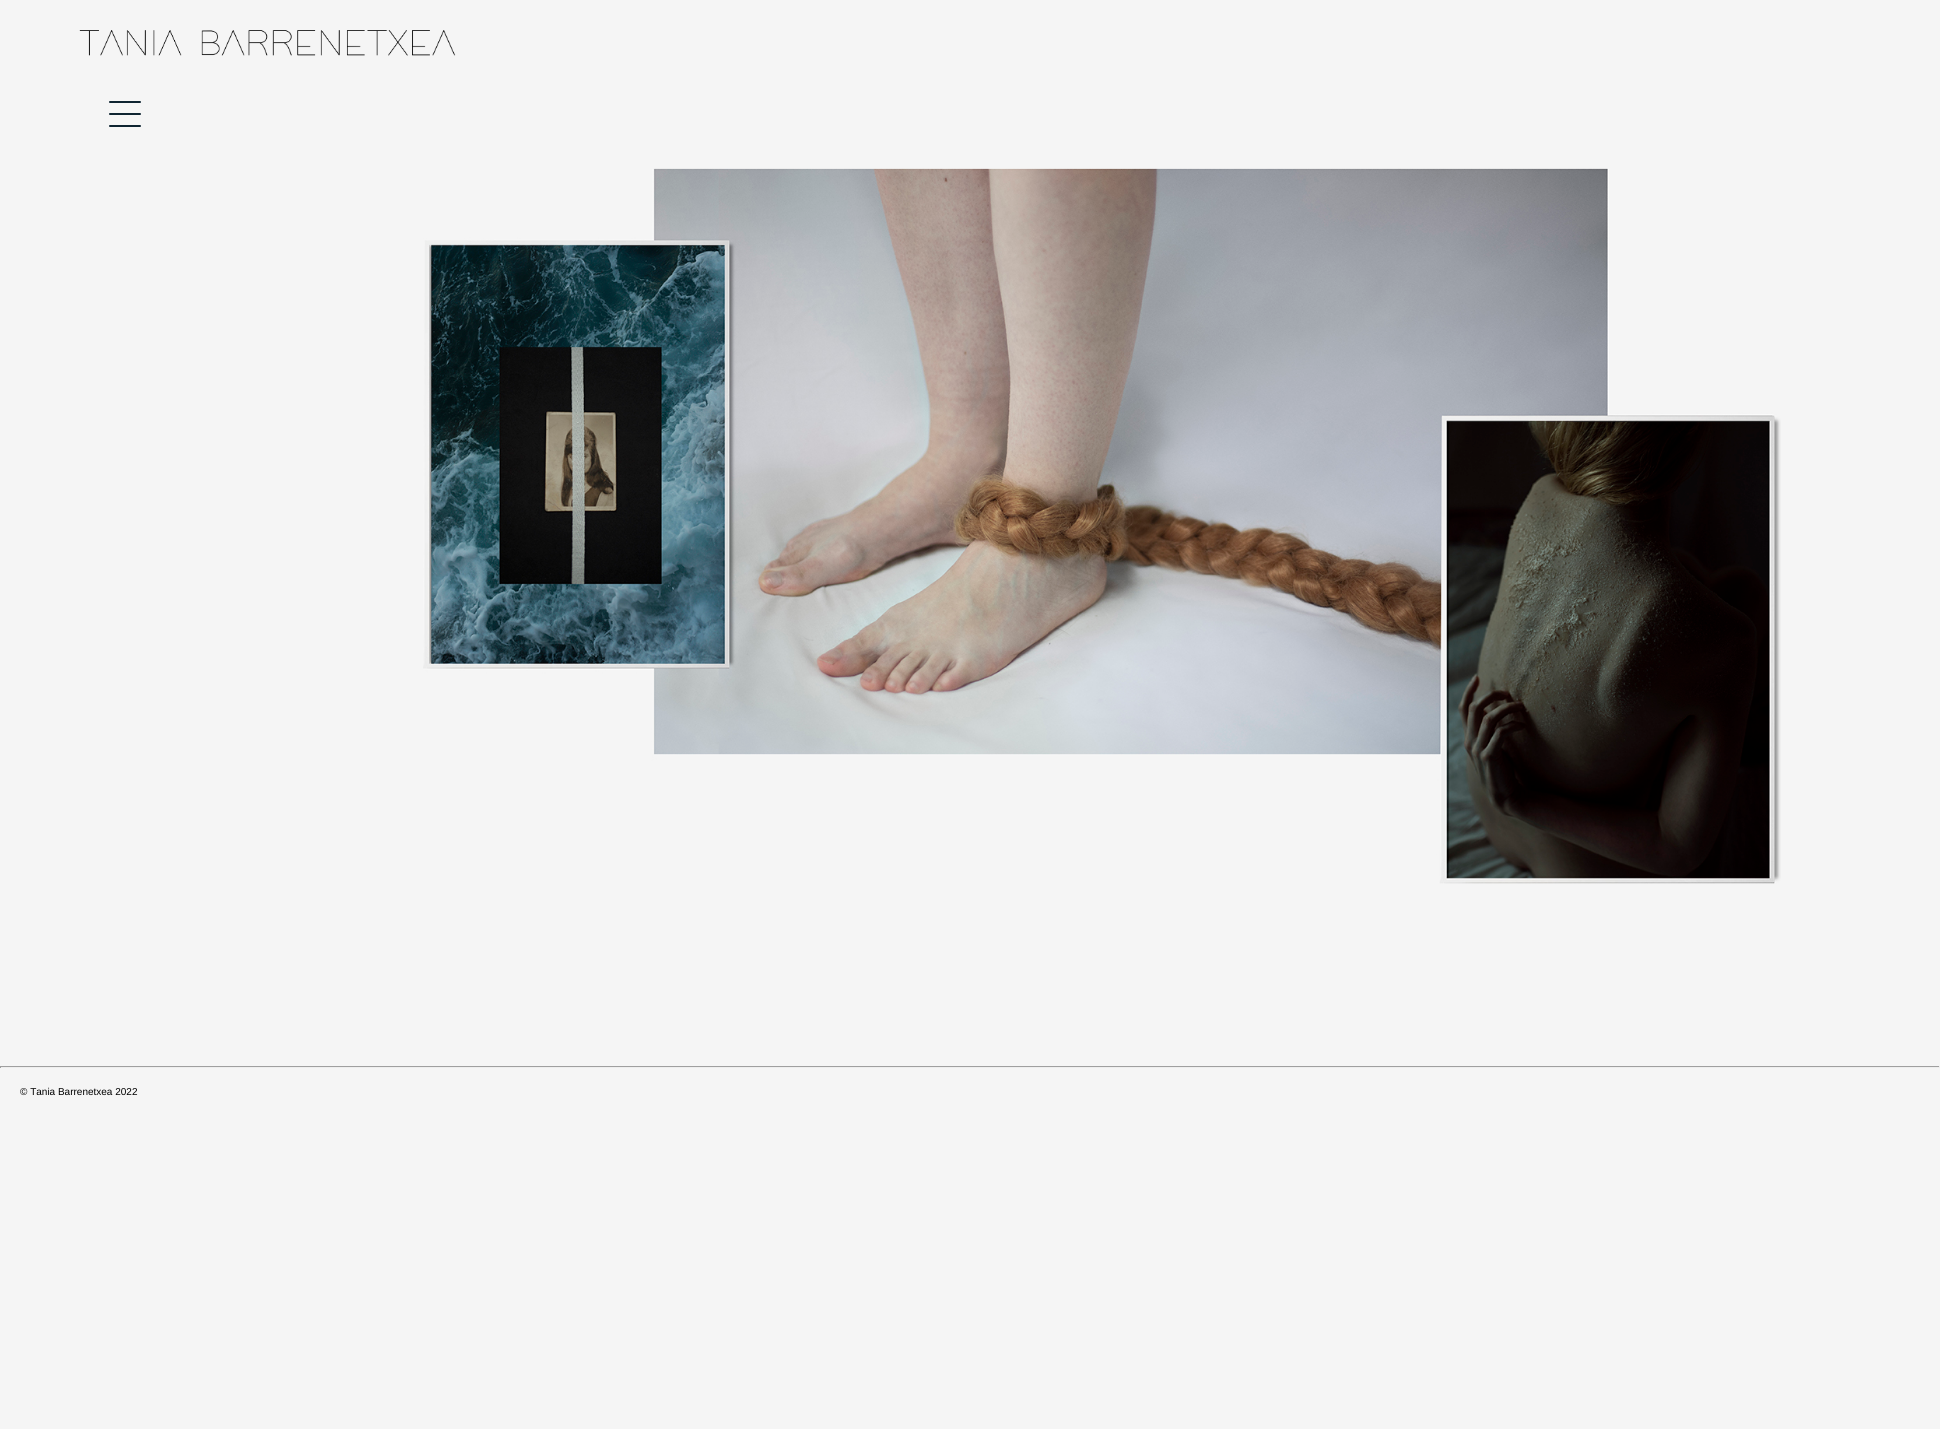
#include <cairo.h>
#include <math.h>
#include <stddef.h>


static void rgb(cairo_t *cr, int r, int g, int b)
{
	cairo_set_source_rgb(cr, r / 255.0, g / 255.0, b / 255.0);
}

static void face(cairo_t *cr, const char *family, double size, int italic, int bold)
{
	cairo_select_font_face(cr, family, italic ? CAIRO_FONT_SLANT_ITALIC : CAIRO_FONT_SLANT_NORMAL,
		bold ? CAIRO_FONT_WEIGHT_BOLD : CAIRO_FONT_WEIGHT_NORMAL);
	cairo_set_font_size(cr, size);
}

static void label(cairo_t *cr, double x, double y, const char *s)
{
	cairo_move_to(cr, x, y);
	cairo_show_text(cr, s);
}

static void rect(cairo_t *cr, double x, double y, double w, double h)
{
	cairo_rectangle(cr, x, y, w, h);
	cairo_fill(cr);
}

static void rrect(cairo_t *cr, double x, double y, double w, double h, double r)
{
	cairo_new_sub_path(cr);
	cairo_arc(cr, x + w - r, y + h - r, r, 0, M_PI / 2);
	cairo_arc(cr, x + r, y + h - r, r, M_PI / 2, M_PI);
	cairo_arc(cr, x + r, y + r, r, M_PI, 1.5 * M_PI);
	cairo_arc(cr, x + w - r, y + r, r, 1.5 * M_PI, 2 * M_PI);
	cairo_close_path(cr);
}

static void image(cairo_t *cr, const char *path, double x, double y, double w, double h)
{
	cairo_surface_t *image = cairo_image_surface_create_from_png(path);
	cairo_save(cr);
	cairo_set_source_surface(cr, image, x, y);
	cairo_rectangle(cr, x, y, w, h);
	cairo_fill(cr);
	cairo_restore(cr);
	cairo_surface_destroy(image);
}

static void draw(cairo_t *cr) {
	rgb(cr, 245, 245, 245);
	cairo_paint(cr);
	image(cr, "image0.png", 79, 30, 377, 26);
	rgb(cr, 14, 36, 49);
	rrect(cr, 109, 101, 32, 2, 1);
	cairo_fill(cr);
	rrect(cr, 109, 113, 32, 2, 1);
	cairo_fill(cr);
	rrect(cr, 109, 125, 32, 2, 1);
	cairo_fill(cr);
	image(cr, "image1.png", 423, 168, 1358, 716);
	rgb(cr, 159, 159, 159);
	rect(cr, 0, 1066, 1940, 1);
	rgb(cr, 238, 238, 238);
	rect(cr, 1939, 1066, 1, 2);
	rect(cr, 0, 1067, 1940, 1);
	rgb(cr, 159, 159, 159);
	rect(cr, 0, 1066, 1, 2);
	face(cr, "Liberation Sans", 10, 0, 0);
	rgb(cr, 0, 0, 0);
	label(cr, 20, 1095, "© Tania Barrenetxea 2022");
}

int main(void) {
	cairo_surface_t *surface = cairo_image_surface_create(CAIRO_FORMAT_RGB24, 1940, 1429);
	cairo_t *cr = cairo_create(surface);
	cairo_font_options_t *options = cairo_font_options_create();
	cairo_font_options_set_hint_metrics(options, CAIRO_HINT_METRICS_OFF);
	cairo_font_options_set_hint_style(options, CAIRO_HINT_STYLE_NONE);
	cairo_set_font_options(cr, options);
	cairo_set_miter_limit(cr, 4);
	draw(cr);
	cairo_surface_write_to_png(surface, "render.png");
	cairo_font_options_destroy(options);
	cairo_destroy(cr);
	cairo_surface_destroy(surface);
	return 0;
}
